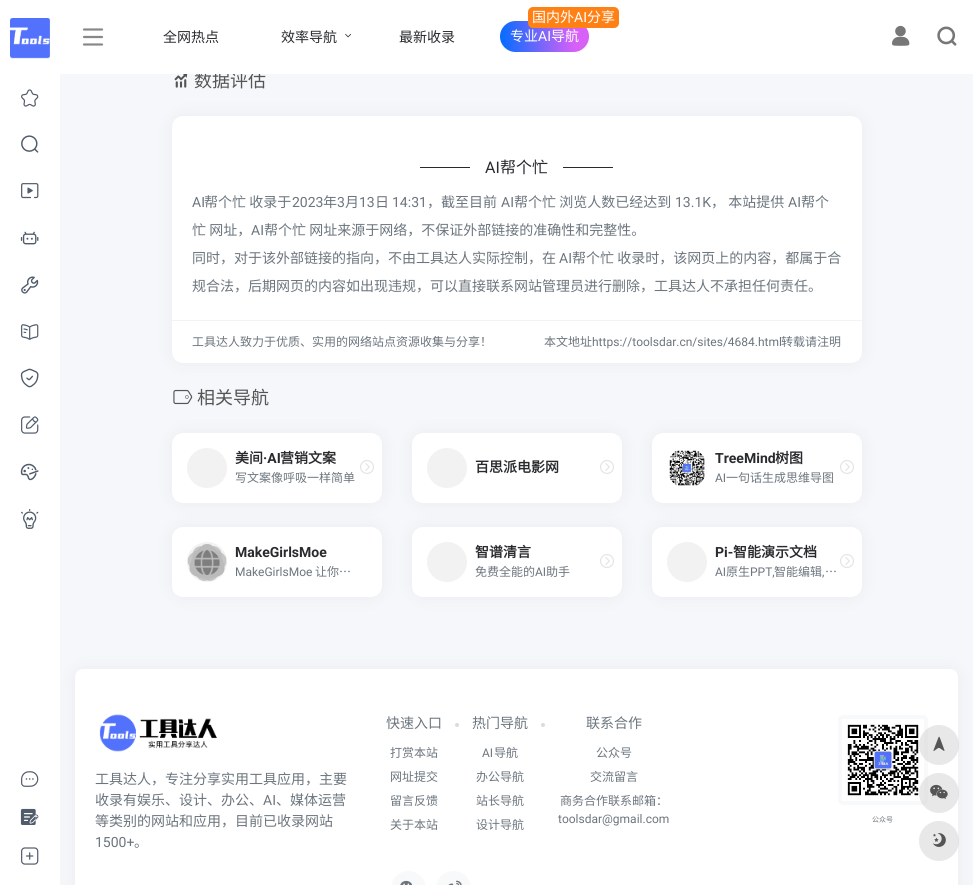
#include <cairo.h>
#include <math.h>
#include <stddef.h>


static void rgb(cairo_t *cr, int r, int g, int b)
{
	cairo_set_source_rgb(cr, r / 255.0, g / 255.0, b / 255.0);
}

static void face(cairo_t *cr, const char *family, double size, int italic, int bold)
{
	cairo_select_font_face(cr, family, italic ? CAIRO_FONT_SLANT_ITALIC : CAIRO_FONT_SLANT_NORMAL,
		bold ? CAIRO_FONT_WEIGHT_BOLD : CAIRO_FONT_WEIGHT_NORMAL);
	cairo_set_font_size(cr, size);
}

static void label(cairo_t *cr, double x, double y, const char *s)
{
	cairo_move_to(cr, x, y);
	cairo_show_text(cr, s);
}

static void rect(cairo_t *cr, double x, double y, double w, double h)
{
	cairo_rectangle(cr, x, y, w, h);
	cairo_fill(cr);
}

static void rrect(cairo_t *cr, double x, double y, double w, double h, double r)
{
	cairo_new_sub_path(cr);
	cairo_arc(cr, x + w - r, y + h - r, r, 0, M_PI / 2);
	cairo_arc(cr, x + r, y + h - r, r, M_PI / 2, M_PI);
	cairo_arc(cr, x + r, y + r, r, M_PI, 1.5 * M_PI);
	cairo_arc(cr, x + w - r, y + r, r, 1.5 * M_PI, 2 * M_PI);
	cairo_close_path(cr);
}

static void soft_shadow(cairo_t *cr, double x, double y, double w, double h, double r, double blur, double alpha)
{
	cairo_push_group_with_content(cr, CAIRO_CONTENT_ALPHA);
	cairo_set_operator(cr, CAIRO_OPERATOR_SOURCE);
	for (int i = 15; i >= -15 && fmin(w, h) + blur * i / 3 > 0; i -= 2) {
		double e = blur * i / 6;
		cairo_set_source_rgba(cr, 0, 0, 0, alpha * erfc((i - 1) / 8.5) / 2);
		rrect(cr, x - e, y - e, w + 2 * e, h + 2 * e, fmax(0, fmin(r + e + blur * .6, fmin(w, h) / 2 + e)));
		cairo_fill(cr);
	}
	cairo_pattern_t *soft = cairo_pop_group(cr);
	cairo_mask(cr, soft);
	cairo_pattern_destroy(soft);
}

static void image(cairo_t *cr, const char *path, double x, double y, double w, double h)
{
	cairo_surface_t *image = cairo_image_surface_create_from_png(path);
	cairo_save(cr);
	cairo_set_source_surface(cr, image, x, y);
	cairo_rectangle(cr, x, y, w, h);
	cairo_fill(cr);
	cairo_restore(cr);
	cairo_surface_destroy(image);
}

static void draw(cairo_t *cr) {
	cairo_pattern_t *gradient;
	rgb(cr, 245, 247, 250);
	cairo_paint(cr);
	rgb(cr, 158, 158, 158);
	soft_shadow(cr, 80, 674, 873, 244, 3, 10, 0.2);
	rgb(cr, 255, 255, 255);
	rect(cr, 0, 0, 60, 885);
	image(cr, "image0.png", 10, 18, 40, 41);
	image(cr, "image1.png", 21, 89, 18, 18);
	image(cr, "image2.png", 21, 135, 18, 18);
	image(cr, "image3.png", 21, 183, 18, 16);
	image(cr, "image4.png", 20, 231, 19, 14);
	image(cr, "image5.png", 21, 276, 18, 18);
	image(cr, "image6.png", 21, 324, 18, 16);
	image(cr, "image7.png", 20, 368, 19, 20);
	image(cr, "image8.png", 21, 416, 18, 18);
	image(cr, "image9.png", 20, 463, 19, 18);
	image(cr, "image10.png", 21, 509, 18, 20);
	image(cr, "image11.png", 21, 771, 18, 16);
	image(cr, "image12.png", 20, 808, 19, 17);
	image(cr, "image13.png", 21, 847, 18, 18);
	face(cr, "Noto Sans CJK SC", 18, 0, 0);
	rgb(cr, 85, 85, 85);
	label(cr, 194, 87, "数据评估");
	rgb(cr, 255, 255, 255);
	rect(cr, 60, 0, 913, 74);
	cairo_new_path(cr);
	cairo_move_to(cr, 84, 29.5);
	cairo_line_to(cr, 102, 29.5);
	cairo_move_to(cr, 84, 37);
	cairo_line_to(cr, 102, 37);
	cairo_move_to(cr, 84, 44.5);
	cairo_line_to(cr, 102, 44.5);
	rgb(cr, 136, 136, 136);
	cairo_set_line_width(cr, 2.2);
	cairo_set_line_cap(cr, CAIRO_LINE_CAP_ROUND);
	cairo_set_line_join(cr, CAIRO_LINE_JOIN_ROUND);
	cairo_stroke(cr);
	face(cr, "Noto Sans CJK SC", 14, 0, 0);
	rgb(cr, 40, 42, 45);
	label(cr, 163, 42, "全网热点");
	label(cr, 281, 42, "效率导航");
	image(cr, "image14.png", 345, 33, 6, 5);
	label(cr, 399, 42, "最新收录");
	gradient = cairo_pattern_create_linear(590, 33, 499, 40);
	cairo_pattern_add_color_stop_rgba(gradient, 0.18, 0.843, 0.376, 0.969, 1);
	cairo_pattern_add_color_stop_rgba(gradient, 1, 0, 0.427, 1, 1);
	cairo_set_source(cr, gradient);
	cairo_pattern_destroy(gradient);
	rrect(cr, 500, 21, 89, 31, 15.5);
	cairo_fill(cr);
	rgb(cr, 255, 129, 22);
	rrect(cr, 528, 7, 91, 21, 5);
	cairo_fill(cr);
	rgb(cr, 255, 255, 255);
	label(cr, 532, 22, "国内外");
	face(cr, "Roboto", 14, 0, 0);
	label(cr, 574, 22, "AI");
	face(cr, "Noto Sans CJK SC", 14, 0, 0);
	label(cr, 587, 22, "分享");
	label(cr, 510, 41, "专业");
	face(cr, "Roboto", 14, 0, 0);
	label(cr, 538, 41, "AI");
	face(cr, "Noto Sans CJK SC", 14, 0, 0);
	label(cr, 551, 41, "导航");
	image(cr, "image15.png", 892, 25, 18, 21);
	image(cr, "image16.png", 937, 26, 20, 20);
	image(cr, "image17.png", 174, 74, 14, 14);
	rgb(cr, 158, 158, 158);
	soft_shadow(cr, 177, 121, 680, 237, 6, 10, 0.2);
	rgb(cr, 255, 255, 255);
	rrect(cr, 172, 116, 690, 247, 11);
	cairo_fill(cr);
	rgb(cr, 40, 42, 45);
	rect(cr, 420, 167, 50, 1);
	face(cr, "Roboto", 16, 0, 0);
	label(cr, 485, 173, "AI");
	face(cr, "Noto Sans CJK SC", 16, 0, 0);
	label(cr, 500, 173, "帮个忙");
	rect(cr, 563, 167, 50, 1);
	face(cr, "Roboto", 14, 0, 0);
	rgb(cr, 108, 117, 125);
	label(cr, 192, 207, "AI");
	face(cr, "Noto Sans CJK SC", 14, 0, 0);
	label(cr, 204, 207, "帮个忙 收录于");
	face(cr, "Roboto", 14, 0, 0);
	label(cr, 292, 207, "2023");
	face(cr, "Noto Sans CJK SC", 14, 0, 0);
	label(cr, 323, 207, "年");
	face(cr, "Roboto", 14, 0, 0);
	label(cr, 337, 207, "3");
	face(cr, "Noto Sans CJK SC", 14, 0, 0);
	label(cr, 345, 207, "月");
	face(cr, "Roboto", 14, 0, 0);
	label(cr, 359, 207, "13");
	face(cr, "Noto Sans CJK SC", 14, 0, 0);
	label(cr, 375, 207, "日");
	face(cr, "Roboto", 14, 0, 0);
	label(cr, 392, 207, "14:31");
	face(cr, "Noto Sans CJK SC", 14, 0, 0);
	label(cr, 427, 207, "，截至目前");
	face(cr, "Roboto", 14, 0, 0);
	label(cr, 501, 207, "AI");
	face(cr, "Noto Sans CJK SC", 14, 0, 0);
	label(cr, 514, 207, "帮个忙 浏览人数已经达到");
	face(cr, "Roboto", 14, 0, 0);
	label(cr, 675, 207, "13.1K");
	face(cr, "Noto Sans CJK SC", 14, 0, 0);
	label(cr, 711, 207, "， 本站提供");
	face(cr, "Roboto", 14, 0, 0);
	label(cr, 788, 207, "AI");
	face(cr, "Noto Sans CJK SC", 14, 0, 0);
	label(cr, 801, 207, "帮个");
	label(cr, 192, 235, "忙 网址，");
	face(cr, "Roboto", 14, 0, 0);
	label(cr, 251, 235, "AI");
	face(cr, "Noto Sans CJK SC", 14, 0, 0);
	label(cr, 264, 235, "帮个忙 网址来源于网络，不保证外部链接的准确性和完整性。");
	label(cr, 192, 263, "同时，对于该外部链接的指向，不由工具达人实际控制，在");
	face(cr, "Roboto", 14, 0, 0);
	label(cr, 559, 263, "AI");
	face(cr, "Noto Sans CJK SC", 14, 0, 0);
	label(cr, 572, 263, "帮个忙 收录时，该网页上的内容，都属于合");
	label(cr, 192, 291, "规合法，后期网页的内容如出现违规，可以直接联系网站管理员进行删除，工具达人不承担任何责任。");
	rgb(cr, 243, 243, 243);
	rect(cr, 172, 320, 690, 1);
	face(cr, "Noto Sans CJK SC", 12, 0, 0);
	rgb(cr, 108, 117, 125);
	label(cr, 192, 346, "工具达人致力于优质、实用的网络站点资源收集与分享！");
	label(cr, 544, 346, "本文地址");
	face(cr, "Roboto", 12, 0, 0);
	label(cr, 592, 346, "https://toolsdar.cn/sites/4684.html");
	face(cr, "Noto Sans CJK SC", 12, 0, 0);
	label(cr, 781, 346, "转载请注明");
	image(cr, "image18.png", 173, 389, 20, 16);
	face(cr, "Noto Sans CJK SC", 18, 0, 0);
	rgb(cr, 85, 85, 85);
	label(cr, 197, 404, "相关导航");
	rgb(cr, 158, 158, 158);
	soft_shadow(cr, 177, 438, 200, 60, 6, 10, 0.2);
	rgb(cr, 255, 255, 255);
	rrect(cr, 172, 433, 210, 70, 11);
	cairo_fill(cr);
	rgb(cr, 242, 242, 242);
	cairo_arc(cr, 207, 468, 20, 0, 2 * M_PI);
	cairo_fill(cr);
	face(cr, "Noto Sans CJK SC", 14, 0, 1);
	rgb(cr, 40, 42, 45);
	label(cr, 235, 463, "美间");
	face(cr, "Roboto", 14, 0, 1);
	label(cr, 263, 463, "·AI");
	face(cr, "Noto Sans CJK SC", 14, 0, 1);
	label(cr, 280, 463, "营销文案");
	face(cr, "Noto Sans CJK SC", 12, 0, 0);
	rgb(cr, 108, 117, 125);
	label(cr, 235, 482, "写文案像呼吸一样简单");
	image(cr, "image19.png", 360, 460, 14, 14);
	rgb(cr, 158, 158, 158);
	soft_shadow(cr, 417, 438, 200, 60, 6, 10, 0.2);
	rgb(cr, 255, 255, 255);
	rrect(cr, 412, 433, 210, 70, 11);
	cairo_fill(cr);
	rgb(cr, 242, 242, 242);
	cairo_arc(cr, 447, 468, 20, 0, 2 * M_PI);
	cairo_fill(cr);
	face(cr, "Noto Sans CJK SC", 14, 0, 1);
	rgb(cr, 40, 42, 45);
	label(cr, 475, 472, "百思派电影网");
	image(cr, "image19.png", 600, 460, 14, 14);
	rgb(cr, 158, 158, 158);
	soft_shadow(cr, 657, 438, 200, 60, 6, 10, 0.2);
	rgb(cr, 255, 255, 255);
	rrect(cr, 652, 433, 210, 70, 11);
	cairo_fill(cr);
	rgb(cr, 242, 242, 242);
	cairo_arc(cr, 687, 468, 20, 0, 2 * M_PI);
	cairo_fill(cr);
	image(cr, "image20.png", 667, 448, 40, 40);
	face(cr, "Roboto", 14, 0, 1);
	rgb(cr, 40, 42, 45);
	label(cr, 715, 463, "TreeMind");
	face(cr, "Noto Sans CJK SC", 14, 0, 1);
	label(cr, 775, 463, "树图");
	face(cr, "Roboto", 12, 0, 0);
	rgb(cr, 108, 117, 125);
	label(cr, 715, 482, "AI");
	face(cr, "Noto Sans CJK SC", 12, 0, 0);
	label(cr, 726, 482, "一句话生成思维导图");
	image(cr, "image19.png", 840, 460, 14, 14);
	rgb(cr, 158, 158, 158);
	soft_shadow(cr, 177, 532, 200, 60, 6, 10, 0.2);
	rgb(cr, 255, 255, 255);
	rrect(cr, 172, 527, 210, 70, 11);
	cairo_fill(cr);
	rgb(cr, 242, 242, 242);
	cairo_arc(cr, 207, 562, 20, 0, 2 * M_PI);
	cairo_fill(cr);
	image(cr, "image21.png", 187, 544, 40, 37);
	face(cr, "Roboto", 14, 0, 1);
	rgb(cr, 40, 42, 45);
	label(cr, 235, 557, "MakeGirlsMoe");
	face(cr, "Roboto", 12, 0, 0);
	rgb(cr, 108, 117, 125);
	label(cr, 235, 576, "MakeGirlsMoe");
	face(cr, "Noto Sans CJK SC", 12, 0, 0);
	label(cr, 315, 576, "让你…");
	rgb(cr, 158, 158, 158);
	soft_shadow(cr, 417, 532, 200, 60, 6, 10, 0.2);
	rgb(cr, 255, 255, 255);
	rrect(cr, 412, 527, 210, 70, 11);
	cairo_fill(cr);
	rgb(cr, 242, 242, 242);
	cairo_arc(cr, 447, 562, 20, 0, 2 * M_PI);
	cairo_fill(cr);
	face(cr, "Noto Sans CJK SC", 14, 0, 1);
	rgb(cr, 40, 42, 45);
	label(cr, 475, 557, "智谱清言");
	face(cr, "Noto Sans CJK SC", 12, 0, 0);
	rgb(cr, 108, 117, 125);
	label(cr, 475, 576, "免费全能的");
	face(cr, "Roboto", 12, 0, 0);
	label(cr, 535, 576, "AI");
	face(cr, "Noto Sans CJK SC", 12, 0, 0);
	label(cr, 546, 576, "助手");
	image(cr, "image19.png", 600, 554, 14, 14);
	rgb(cr, 158, 158, 158);
	soft_shadow(cr, 657, 532, 200, 60, 6, 10, 0.2);
	rgb(cr, 255, 255, 255);
	rrect(cr, 652, 527, 210, 70, 11);
	cairo_fill(cr);
	rgb(cr, 242, 242, 242);
	cairo_arc(cr, 687, 562, 20, 0, 2 * M_PI);
	cairo_fill(cr);
	face(cr, "Roboto", 14, 0, 1);
	rgb(cr, 40, 42, 45);
	label(cr, 715, 557, "Pi-");
	face(cr, "Noto Sans CJK SC", 14, 0, 1);
	label(cr, 733, 557, "智能演示文档");
	face(cr, "Roboto", 12, 0, 0);
	rgb(cr, 108, 117, 125);
	label(cr, 715, 576, "AI");
	face(cr, "Noto Sans CJK SC", 12, 0, 0);
	label(cr, 726, 576, "原生");
	face(cr, "Roboto", 12, 0, 0);
	label(cr, 750, 576, "PPT,");
	face(cr, "Noto Sans CJK SC", 12, 0, 0);
	label(cr, 774, 576, "智能编辑");
	label(cr, 825, 576, "…");
	face(cr, "Roboto", 12, 0, 0);
	label(cr, 822, 576, ",");
	image(cr, "image19.png", 840, 554, 14, 14);
	rgb(cr, 255, 255, 255);
	rrect(cr, 75, 669, 883, 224, 8);
	cairo_fill(cr);
	image(cr, "image22.png", 99, 714, 118, 38);
	face(cr, "Noto Sans CJK SC", 14, 0, 0);
	rgb(cr, 108, 117, 125);
	label(cr, 95, 784, "工具达人，专注分享实用工具应用，主要");
	label(cr, 95, 805, "收录有娱乐、设计、办公、");
	face(cr, "Roboto", 14, 0, 0);
	label(cr, 263, 805, "AI");
	face(cr, "Noto Sans CJK SC", 14, 0, 0);
	label(cr, 276, 805, "、媒体运营");
	label(cr, 95, 826, "等类别的网站和应用，目前已收录网站");
	face(cr, "Roboto", 14, 0, 0);
	label(cr, 95, 847, "1500+");
	face(cr, "Noto Sans CJK SC", 14, 0, 0);
	label(cr, 134, 847, "。");
	label(cr, 386, 728, "快速入口");
	face(cr, "Noto Sans CJK SC", 12, 0, 0);
	label(cr, 390, 757, "打赏本站");
	label(cr, 390, 781, "网址提交");
	label(cr, 390, 805, "留言反馈");
	label(cr, 390, 829, "关于本站");
	rgb(cr, 219, 219, 219);
	cairo_new_path(cr);
	cairo_arc(cr, 457, 725, 2, 0, 2 * M_PI);
	cairo_fill(cr);
	face(cr, "Noto Sans CJK SC", 14, 0, 0);
	rgb(cr, 108, 117, 125);
	label(cr, 472, 728, "热门导航");
	face(cr, "Roboto", 12, 0, 0);
	label(cr, 482, 757, "AI");
	face(cr, "Noto Sans CJK SC", 12, 0, 0);
	label(cr, 494, 757, "导航");
	label(cr, 476, 781, "办公导航");
	label(cr, 476, 805, "站长导航");
	label(cr, 476, 829, "设计导航");
	rgb(cr, 219, 219, 219);
	cairo_new_path(cr);
	cairo_arc(cr, 543, 725, 2, 0, 2 * M_PI);
	cairo_fill(cr);
	face(cr, "Noto Sans CJK SC", 14, 0, 0);
	rgb(cr, 108, 117, 125);
	label(cr, 586, 728, "联系合作");
	face(cr, "Noto Sans CJK SC", 12, 0, 0);
	label(cr, 596, 757, "公众号");
	label(cr, 590, 781, "交流留言");
	label(cr, 560, 805, "商务合作联系邮箱：");
	face(cr, "Roboto", 12, 0, 0);
	label(cr, 558, 823, "toolsdar@gmail.com");
	rgb(cr, 248, 249, 250);
	rrect(cr, 391, 871, 35, 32, 17.5);
	cairo_fill(cr);
	image(cr, "image23.png", 400, 880, 13, 5);
	rrect(cr, 436, 871, 35, 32, 17.5);
	cairo_fill(cr);
	image(cr, "image24.png", 448, 880, 14, 5);
	rrect(cr, 838, 715, 90, 90, 5);
	cairo_fill(cr);
	image(cr, "image25.png", 842, 719, 82, 82);
	face(cr, "Noto Sans CJK SC", 7, 0, 0);
	rgb(cr, 108, 117, 125);
	label(cr, 872, 822, "公众号");
	cairo_set_source_rgba(cr, 0.824, 0.824, 0.824, 0.5);
	cairo_new_path(cr);
	cairo_arc(cr, 939, 745, 20, 0, 2 * M_PI);
	cairo_fill(cr);
	image(cr, "image26.png", 933, 736, 12, 15);
	cairo_arc(cr, 939, 793, 20, 0, 2 * M_PI);
	cairo_fill(cr);
	image(cr, "image27.png", 930, 784, 18, 15);
	cairo_arc(cr, 939, 841, 20, 0, 2 * M_PI);
	cairo_fill(cr);
	image(cr, "image28.png", 933, 833, 13, 14);
}

int main(void) {
	cairo_surface_t *surface = cairo_image_surface_create(CAIRO_FORMAT_RGB24, 973, 885);
	cairo_t *cr = cairo_create(surface);
	cairo_font_options_t *options = cairo_font_options_create();
	cairo_font_options_set_hint_metrics(options, CAIRO_HINT_METRICS_OFF);
	cairo_font_options_set_hint_style(options, CAIRO_HINT_STYLE_NONE);
	cairo_set_font_options(cr, options);
	cairo_set_miter_limit(cr, 4);
	draw(cr);
	cairo_surface_write_to_png(surface, "render.png");
	cairo_font_options_destroy(options);
	cairo_destroy(cr);
	cairo_surface_destroy(surface);
	return 0;
}
